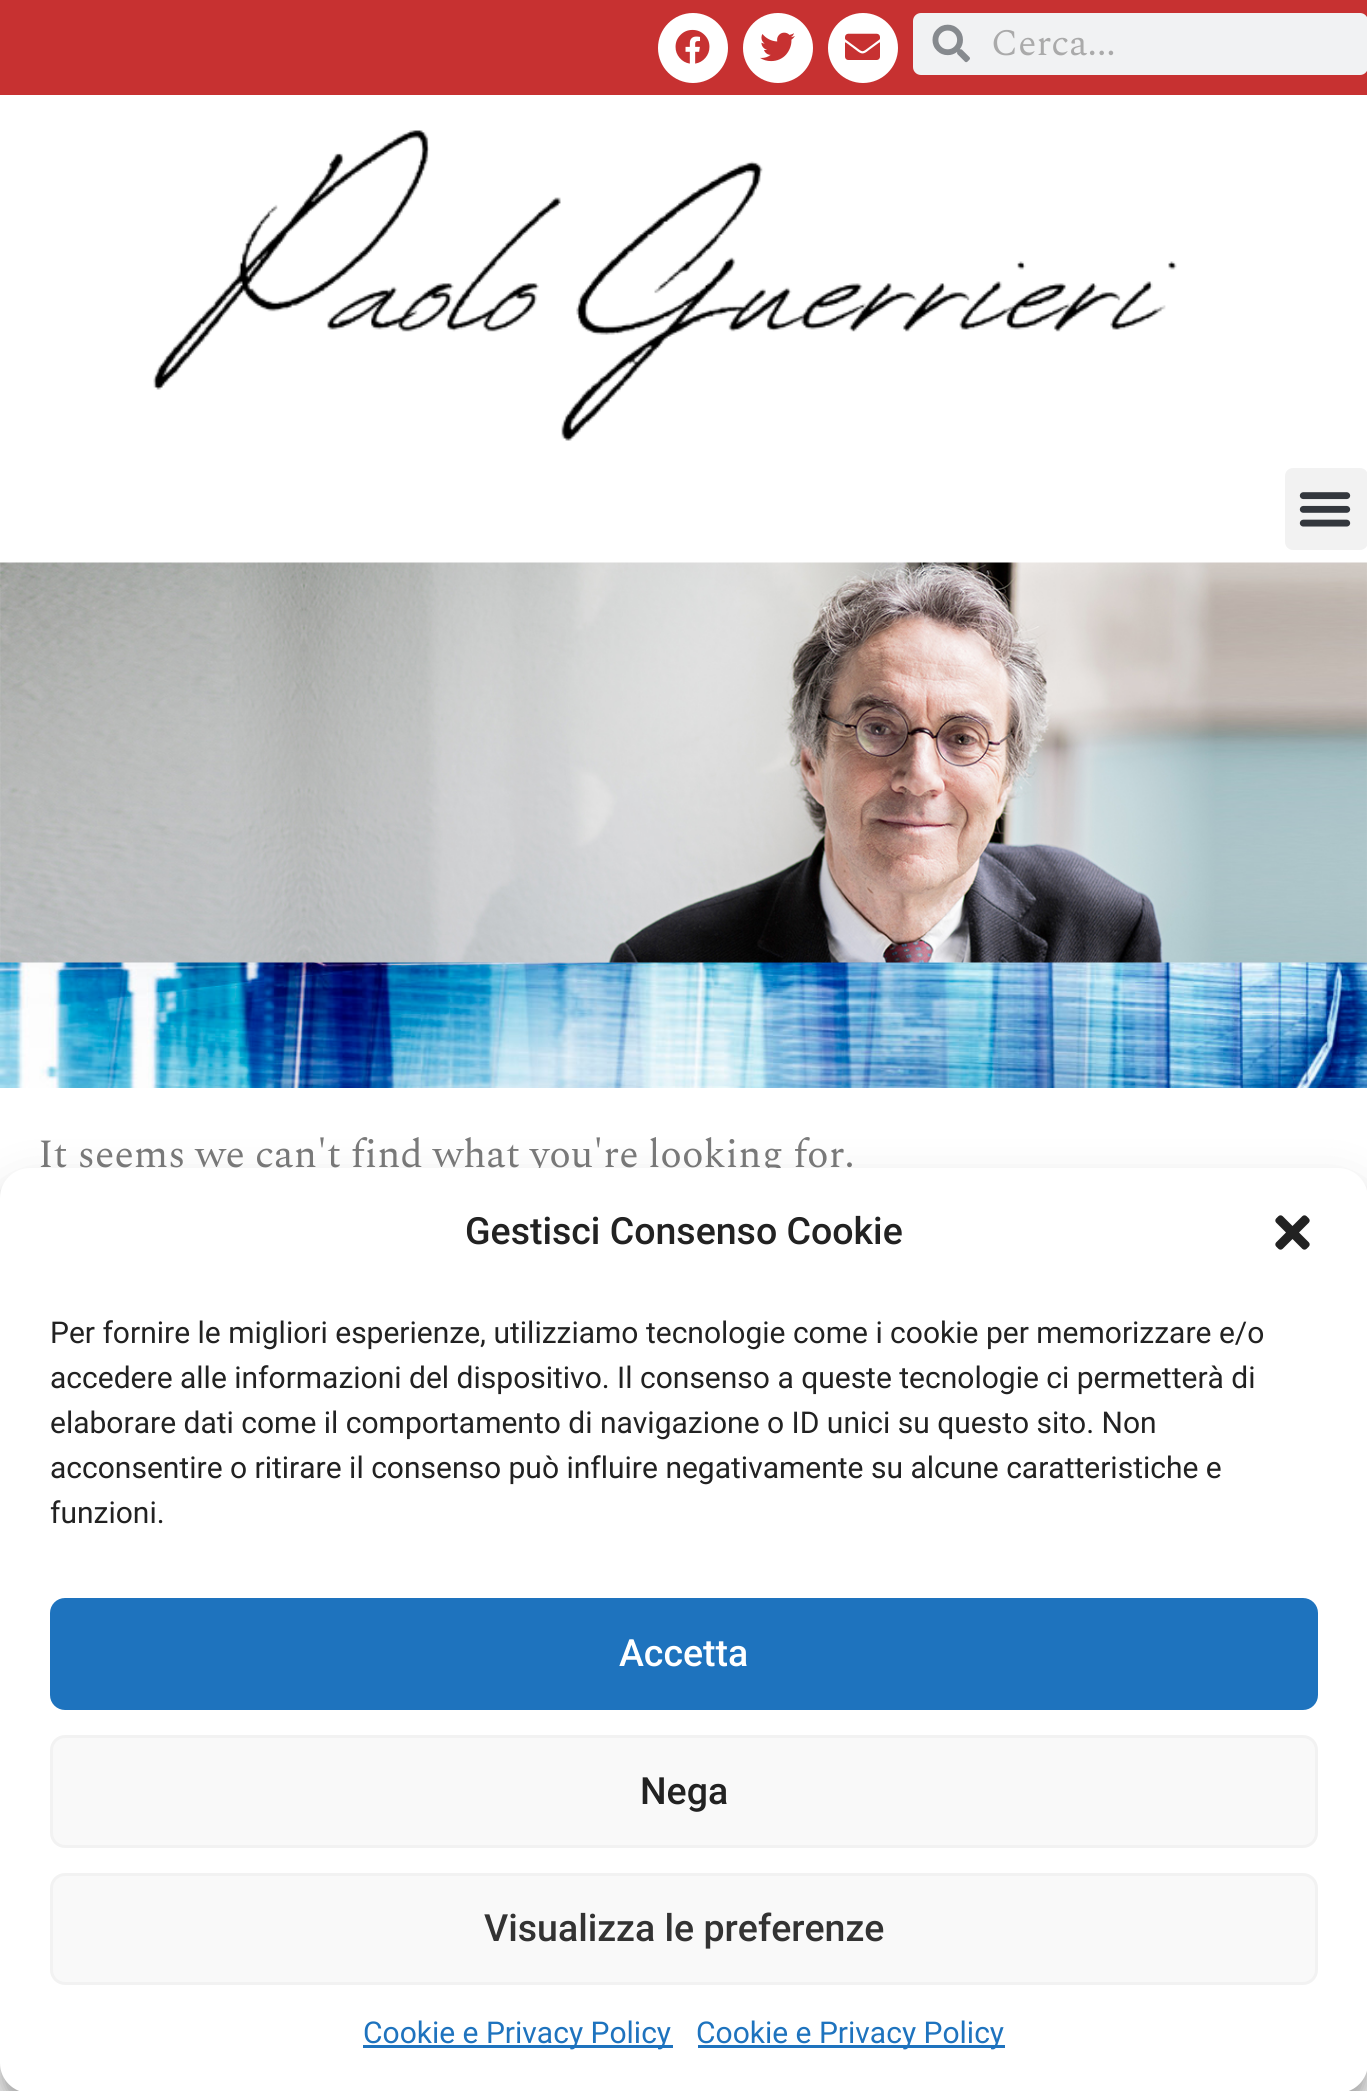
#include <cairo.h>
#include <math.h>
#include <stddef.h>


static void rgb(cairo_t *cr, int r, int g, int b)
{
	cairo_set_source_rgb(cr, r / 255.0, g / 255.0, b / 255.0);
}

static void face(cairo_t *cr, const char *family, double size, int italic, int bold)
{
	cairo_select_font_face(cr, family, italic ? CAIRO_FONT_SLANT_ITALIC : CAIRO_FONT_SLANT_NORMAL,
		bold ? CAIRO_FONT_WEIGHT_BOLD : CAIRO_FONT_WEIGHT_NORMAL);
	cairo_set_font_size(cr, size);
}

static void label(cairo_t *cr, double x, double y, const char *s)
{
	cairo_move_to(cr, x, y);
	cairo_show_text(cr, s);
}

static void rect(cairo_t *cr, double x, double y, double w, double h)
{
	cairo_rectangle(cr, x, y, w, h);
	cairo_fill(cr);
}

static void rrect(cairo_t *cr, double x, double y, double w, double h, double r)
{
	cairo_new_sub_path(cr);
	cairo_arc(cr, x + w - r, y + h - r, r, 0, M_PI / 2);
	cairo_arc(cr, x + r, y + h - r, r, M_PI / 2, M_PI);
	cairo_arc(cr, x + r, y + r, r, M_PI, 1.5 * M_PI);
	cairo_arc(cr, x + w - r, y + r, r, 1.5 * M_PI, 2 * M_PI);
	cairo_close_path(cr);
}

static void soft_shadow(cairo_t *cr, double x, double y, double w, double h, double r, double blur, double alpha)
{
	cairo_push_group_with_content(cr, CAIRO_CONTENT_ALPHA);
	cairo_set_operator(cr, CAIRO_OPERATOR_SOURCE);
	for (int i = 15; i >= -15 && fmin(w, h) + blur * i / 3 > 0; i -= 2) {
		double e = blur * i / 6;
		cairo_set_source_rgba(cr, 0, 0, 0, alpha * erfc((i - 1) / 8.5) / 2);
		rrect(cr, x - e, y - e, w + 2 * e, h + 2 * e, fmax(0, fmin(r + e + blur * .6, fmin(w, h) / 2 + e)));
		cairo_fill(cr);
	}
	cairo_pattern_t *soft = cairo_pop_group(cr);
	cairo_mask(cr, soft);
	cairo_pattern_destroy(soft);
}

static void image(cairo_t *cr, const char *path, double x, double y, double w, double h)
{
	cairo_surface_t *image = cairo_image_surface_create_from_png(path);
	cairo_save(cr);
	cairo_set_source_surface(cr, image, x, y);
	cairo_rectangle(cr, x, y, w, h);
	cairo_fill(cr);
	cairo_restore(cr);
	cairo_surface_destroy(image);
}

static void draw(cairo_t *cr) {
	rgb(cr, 255, 255, 255);
	cairo_paint(cr);
	image(cr, "image0.png", 0, 962, 1367, 126);
	rgb(cr, 199, 49, 49);
	rect(cr, 0, 0, 1367, 95);
	rgb(cr, 255, 255, 255);
	cairo_arc(cr, 693, 48, 35, 0, 2 * M_PI);
	cairo_fill(cr);
	image(cr, "image1.png", 675, 29, 35, 35);
	cairo_arc(cr, 778, 48, 35, 0, 2 * M_PI);
	cairo_fill(cr);
	image(cr, "image2.png", 760, 32, 35, 30);
	cairo_arc(cr, 863, 48, 35, 0, 2 * M_PI);
	cairo_fill(cr);
	image(cr, "image3.png", 845, 33, 35, 27);
	rgb(cr, 241, 242, 243);
	rrect(cr, 913, 13, 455, 62, 8);
	cairo_fill(cr);
	image(cr, "image4.png", 932, 24, 38, 39);
	face(cr, "Spectral", 37.5, 0, 0);
	rgb(cr, 170, 170, 170);
	label(cr, 991, 55, "Cerca...");
	image(cr, "image5.png", 153, 130, 1024, 311);
	rgb(cr, 242, 242, 242);
	rrect(cr, 1285, 468, 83, 82, 8);
	cairo_fill(cr);
	image(cr, "image6.png", 1299, 492, 52, 35);
	image(cr, "image7.png", 0, 562, 1367, 401);
	face(cr, "Spectral", 40, 0, 0);
	rgb(cr, 122, 122, 122);
	label(cr, 38, 1167, "It seems we can't find what you're looking for.");
	rgb(cr, 0, 0, 0);
	soft_shadow(cr, 0, 1183, 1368, 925, 30, 7.5, 0.23);
	soft_shadow(cr, 0, 1193, 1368, 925, 30, 25, 0.19);
	rgb(cr, 255, 255, 255);
	rrect(cr, 0, 1168, 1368, 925, 30);
	cairo_fill(cr);
	face(cr, "Roboto Medium", 37.5, 0, 0);
	rgb(cr, 34, 34, 34);
	label(cr, 465, 1244, "Gestisci Consenso Cookie");
	image(cr, "image8.png", 1275, 1215, 35, 35);
	face(cr, "Roboto", 30, 0, 0);
	label(cr, 50, 1343, "Per fornire le migliori esperienze, utilizziamo tecnologie come i cookie per memorizzare e/o");
	label(cr, 50, 1388, "accedere alle informazioni del dispositivo. Il consenso a queste tecnologie ci permetterà di");
	label(cr, 50, 1433, "elaborare dati come il comportamento di navigazione o ID unici su questo sito. Non");
	label(cr, 50, 1478, "acconsentire o ritirare il consenso può influire negativamente su alcune caratteristiche e");
	label(cr, 50, 1523, "funzioni.");
	rgb(cr, 30, 115, 190);
	rrect(cr, 51.5, 1599.5, 1265, 109, 13.5);
	cairo_fill_preserve(cr);
	cairo_set_line_width(cr, 3);
	cairo_stroke(cr);
	face(cr, "Roboto Medium", 37.5, 0, 0);
	rgb(cr, 255, 255, 255);
	label(cr, 619, 1666, "Accetta");
	rgb(cr, 249, 249, 249);
	rrect(cr, 51.5, 1736.5, 1265, 110, 13.5);
	cairo_fill_preserve(cr);
	rgb(cr, 242, 242, 242);
	cairo_stroke(cr);
	rgb(cr, 34, 34, 34);
	label(cr, 640, 1804, "Nega");
	rgb(cr, 249, 249, 249);
	rrect(cr, 51.5, 1874.5, 1265, 109, 13.5);
	cairo_fill_preserve(cr);
	rgb(cr, 242, 242, 242);
	cairo_stroke(cr);
	rgb(cr, 51, 51, 51);
	label(cr, 484, 1941, "Visualizza le preferenze");
	rgb(cr, 30, 115, 190);
	rect(cr, 363, 2045, 310, 3);
	face(cr, "Roboto", 30, 0, 0);
	label(cr, 363, 2043, "Cookie e Privacy Policy");
	rect(cr, 698, 2045, 307, 3);
	label(cr, 696, 2043, "Cookie e Privacy Policy");
}

int main(void) {
	cairo_surface_t *surface = cairo_image_surface_create(CAIRO_FORMAT_RGB24, 1367, 2091);
	cairo_t *cr = cairo_create(surface);
	cairo_font_options_t *options = cairo_font_options_create();
	cairo_font_options_set_hint_metrics(options, CAIRO_HINT_METRICS_OFF);
	cairo_font_options_set_hint_style(options, CAIRO_HINT_STYLE_NONE);
	cairo_set_font_options(cr, options);
	cairo_set_miter_limit(cr, 4);
	draw(cr);
	cairo_surface_write_to_png(surface, "render.png");
	cairo_font_options_destroy(options);
	cairo_destroy(cr);
	cairo_surface_destroy(surface);
	return 0;
}
